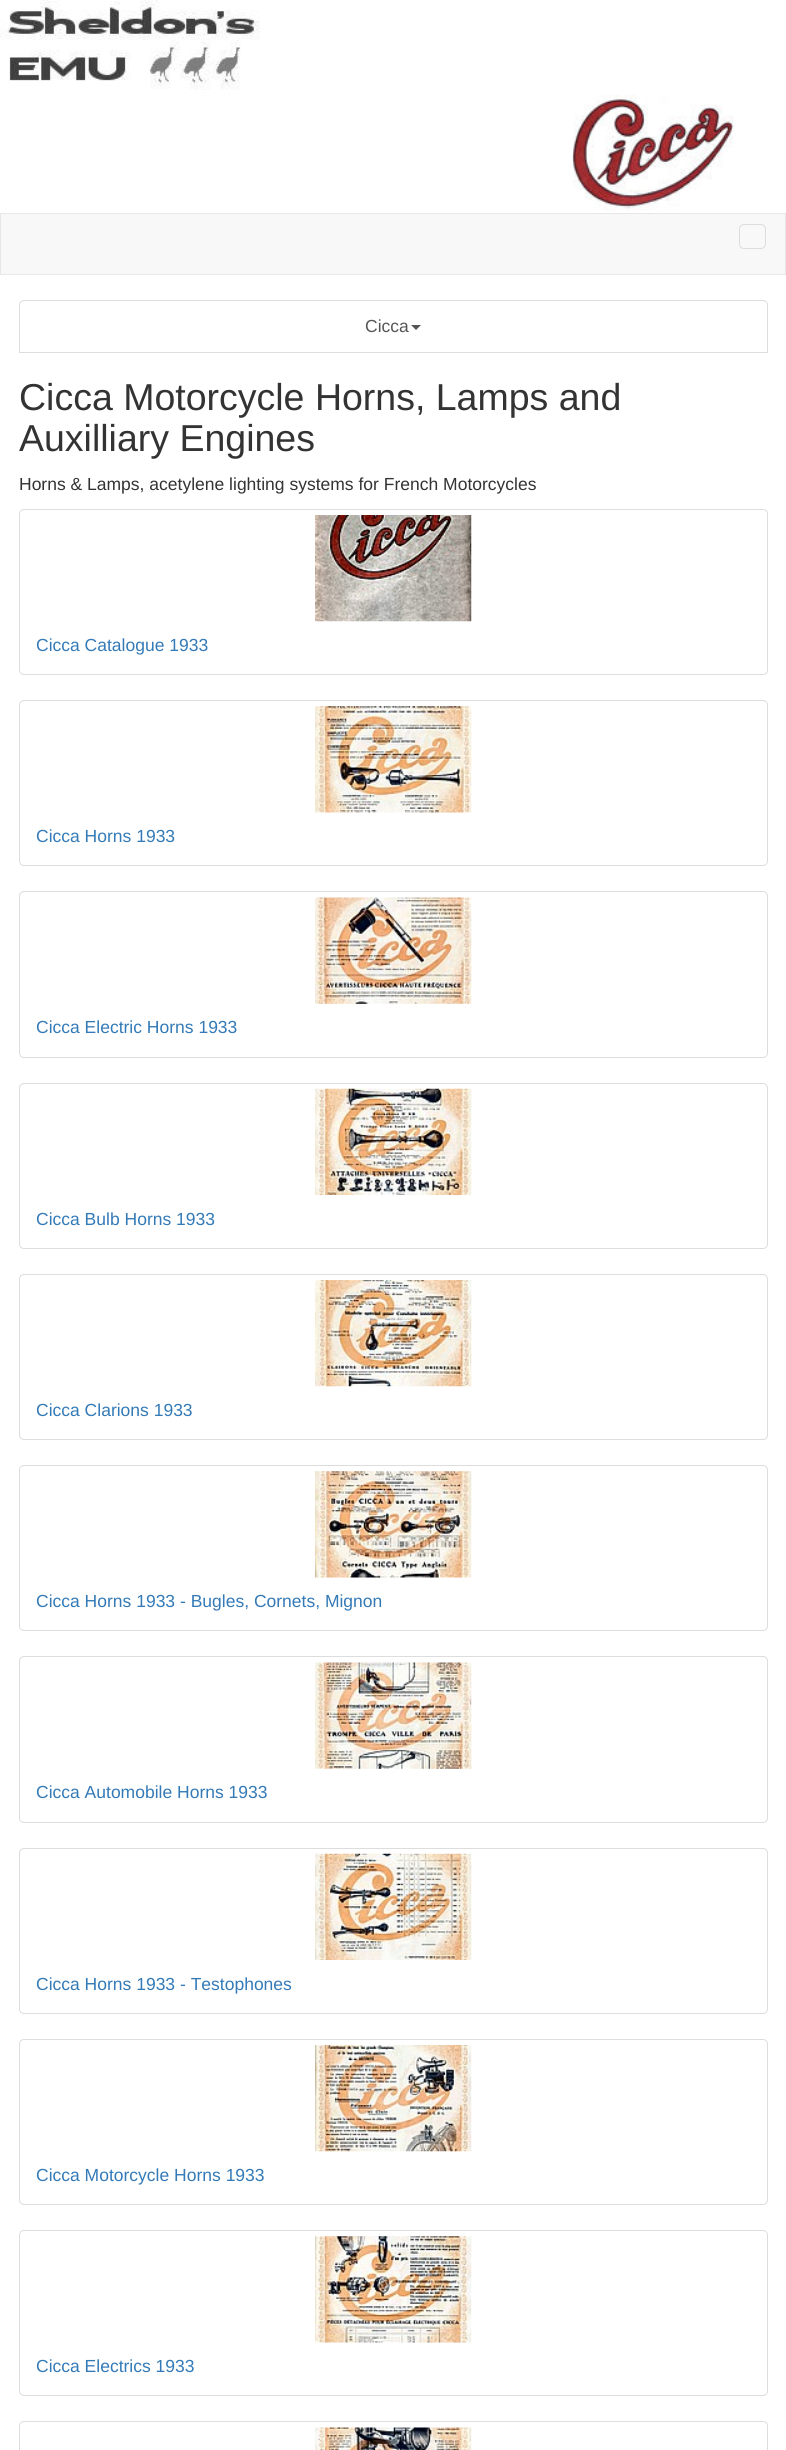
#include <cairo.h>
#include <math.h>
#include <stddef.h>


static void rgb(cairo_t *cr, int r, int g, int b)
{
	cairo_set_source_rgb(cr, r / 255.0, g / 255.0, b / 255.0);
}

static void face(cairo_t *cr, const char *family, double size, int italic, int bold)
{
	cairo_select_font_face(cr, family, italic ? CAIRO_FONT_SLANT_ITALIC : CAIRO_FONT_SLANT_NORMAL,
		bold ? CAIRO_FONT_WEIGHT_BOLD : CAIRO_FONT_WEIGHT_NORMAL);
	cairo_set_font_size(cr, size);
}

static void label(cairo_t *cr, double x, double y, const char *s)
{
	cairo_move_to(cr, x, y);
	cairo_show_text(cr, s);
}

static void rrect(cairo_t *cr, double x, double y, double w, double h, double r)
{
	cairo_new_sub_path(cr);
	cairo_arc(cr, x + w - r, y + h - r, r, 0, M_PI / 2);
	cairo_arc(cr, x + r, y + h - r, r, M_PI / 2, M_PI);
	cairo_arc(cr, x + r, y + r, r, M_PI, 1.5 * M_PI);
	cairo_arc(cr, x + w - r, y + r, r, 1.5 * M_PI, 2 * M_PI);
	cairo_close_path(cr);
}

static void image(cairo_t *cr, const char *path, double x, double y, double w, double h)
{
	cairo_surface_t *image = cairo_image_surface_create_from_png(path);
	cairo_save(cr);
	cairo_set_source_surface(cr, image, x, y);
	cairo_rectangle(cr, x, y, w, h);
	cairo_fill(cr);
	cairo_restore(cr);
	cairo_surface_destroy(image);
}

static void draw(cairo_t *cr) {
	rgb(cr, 255, 255, 255);
	cairo_paint(cr);
	image(cr, "image0.png", 0, 0, 260, 90);
	image(cr, "image1.png", 571, 94, 163, 117);
	rgb(cr, 248, 248, 248);
	cairo_rectangle(cr, 0.5, 213.5, 785, 61);
	cairo_fill_preserve(cr);
	rgb(cr, 231, 231, 231);
	cairo_set_line_width(cr, 1);
	cairo_stroke(cr);
	rrect(cr, 739.5, 224.5, 26, 24, 4.5);
	rgb(cr, 221, 221, 221);
	cairo_stroke(cr);
	cairo_new_path(cr);
	cairo_move_to(cr, 24, 300.5);
	cairo_line_to(cr, 763, 300.5);
	cairo_curve_to(cr, 765.5, 300.5, 767.5, 302.5, 767.5, 305);
	cairo_line_to(cr, 767.5, 352.5);
	cairo_line_to(cr, 19.5, 352.5);
	cairo_line_to(cr, 19.5, 305);
	cairo_curve_to(cr, 19.5, 302.5, 21.5, 300.5, 24, 300.5);
	cairo_close_path(cr);
	cairo_stroke(cr);
	face(cr, "Liberation Sans", 17.5, 0, 0);
	rgb(cr, 85, 85, 85);
	label(cr, 365, 332, "Cicca");
	cairo_new_path(cr);
	cairo_move_to(cr, 411, 325);
	cairo_line_to(cr, 421, 325);
	cairo_line_to(cr, 416, 330);
	cairo_close_path(cr);
	cairo_fill(cr);
	face(cr, "Liberation Sans", 37.5, 0, 0);
	rgb(cr, 51, 51, 51);
	label(cr, 19, 410, "Cicca Motorcycle Horns, Lamps and");
	label(cr, 19, 451, "Auxilliary Engines");
	face(cr, "Liberation Sans", 17.5, 0, 0);
	label(cr, 19, 490, "Horns & Lamps, acetylene lighting systems for French Motorcycles");
	rrect(cr, 19.5, 509.5, 748, 165, 4.5);
	rgb(cr, 221, 221, 221);
	cairo_stroke(cr);
	image(cr, "image2.png", 315, 515, 157, 107);
	rgb(cr, 51, 122, 183);
	label(cr, 36, 651, "Cicca Catalogue 1933");
	rrect(cr, 19.5, 700.5, 748, 165, 4.5);
	rgb(cr, 221, 221, 221);
	cairo_stroke(cr);
	image(cr, "image3.png", 315, 706, 157, 107);
	rgb(cr, 51, 122, 183);
	label(cr, 36, 842, "Cicca Horns 1933");
	rrect(cr, 19.5, 891.5, 748, 166, 4.5);
	rgb(cr, 221, 221, 221);
	cairo_stroke(cr);
	image(cr, "image4.png", 315, 897, 157, 107);
	rgb(cr, 51, 122, 183);
	label(cr, 36, 1033, "Cicca Electric Horns 1933");
	rrect(cr, 19.5, 1083.5, 748, 165, 4.5);
	rgb(cr, 221, 221, 221);
	cairo_stroke(cr);
	image(cr, "image5.png", 315, 1088, 157, 107);
	rgb(cr, 51, 122, 183);
	label(cr, 36, 1225, "Cicca Bulb Horns 1933");
	rrect(cr, 19.5, 1274.5, 748, 165, 4.5);
	rgb(cr, 221, 221, 221);
	cairo_stroke(cr);
	image(cr, "image6.png", 315, 1280, 157, 107);
	rgb(cr, 51, 122, 183);
	label(cr, 36, 1416, "Cicca Clarions 1933");
	rrect(cr, 19.5, 1465.5, 748, 165, 4.5);
	rgb(cr, 221, 221, 221);
	cairo_stroke(cr);
	image(cr, "image7.png", 315, 1471, 157, 107);
	rgb(cr, 51, 122, 183);
	label(cr, 36, 1607, "Cicca Horns 1933 - Bugles, Cornets, Mignon");
	rrect(cr, 19.5, 1656.5, 748, 166, 4.5);
	rgb(cr, 221, 221, 221);
	cairo_stroke(cr);
	image(cr, "image8.png", 315, 1662, 157, 107);
	rgb(cr, 51, 122, 183);
	label(cr, 36, 1798, "Cicca Automobile Horns 1933");
	rrect(cr, 19.5, 1848.5, 748, 165, 4.5);
	rgb(cr, 221, 221, 221);
	cairo_stroke(cr);
	image(cr, "image9.png", 315, 1853, 157, 107);
	rgb(cr, 51, 122, 183);
	label(cr, 36, 1990, "Cicca Horns 1933 - Testophones");
	rrect(cr, 19.5, 2039.5, 748, 165, 4.5);
	rgb(cr, 221, 221, 221);
	cairo_stroke(cr);
	image(cr, "image10.png", 315, 2045, 157, 107);
	rgb(cr, 51, 122, 183);
	label(cr, 36, 2181, "Cicca Motorcycle Horns 1933");
	rrect(cr, 19.5, 2230.5, 748, 165, 4.5);
	rgb(cr, 221, 221, 221);
	cairo_stroke(cr);
	image(cr, "image11.png", 315, 2236, 157, 107);
	rgb(cr, 51, 122, 183);
	label(cr, 36, 2372, "Cicca Electrics 1933");
	rrect(cr, 19.5, 2421.5, 748, 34, 4.5);
	rgb(cr, 221, 221, 221);
	cairo_stroke(cr);
	image(cr, "image12.png", 315, 2427, 157, 23);
}

int main(void) {
	cairo_surface_t *surface = cairo_image_surface_create(CAIRO_FORMAT_RGB24, 786, 2450);
	cairo_t *cr = cairo_create(surface);
	cairo_font_options_t *options = cairo_font_options_create();
	cairo_font_options_set_hint_metrics(options, CAIRO_HINT_METRICS_OFF);
	cairo_font_options_set_hint_style(options, CAIRO_HINT_STYLE_NONE);
	cairo_set_font_options(cr, options);
	cairo_set_miter_limit(cr, 4);
	draw(cr);
	cairo_surface_write_to_png(surface, "render.png");
	cairo_font_options_destroy(options);
	cairo_destroy(cr);
	cairo_surface_destroy(surface);
	return 0;
}
